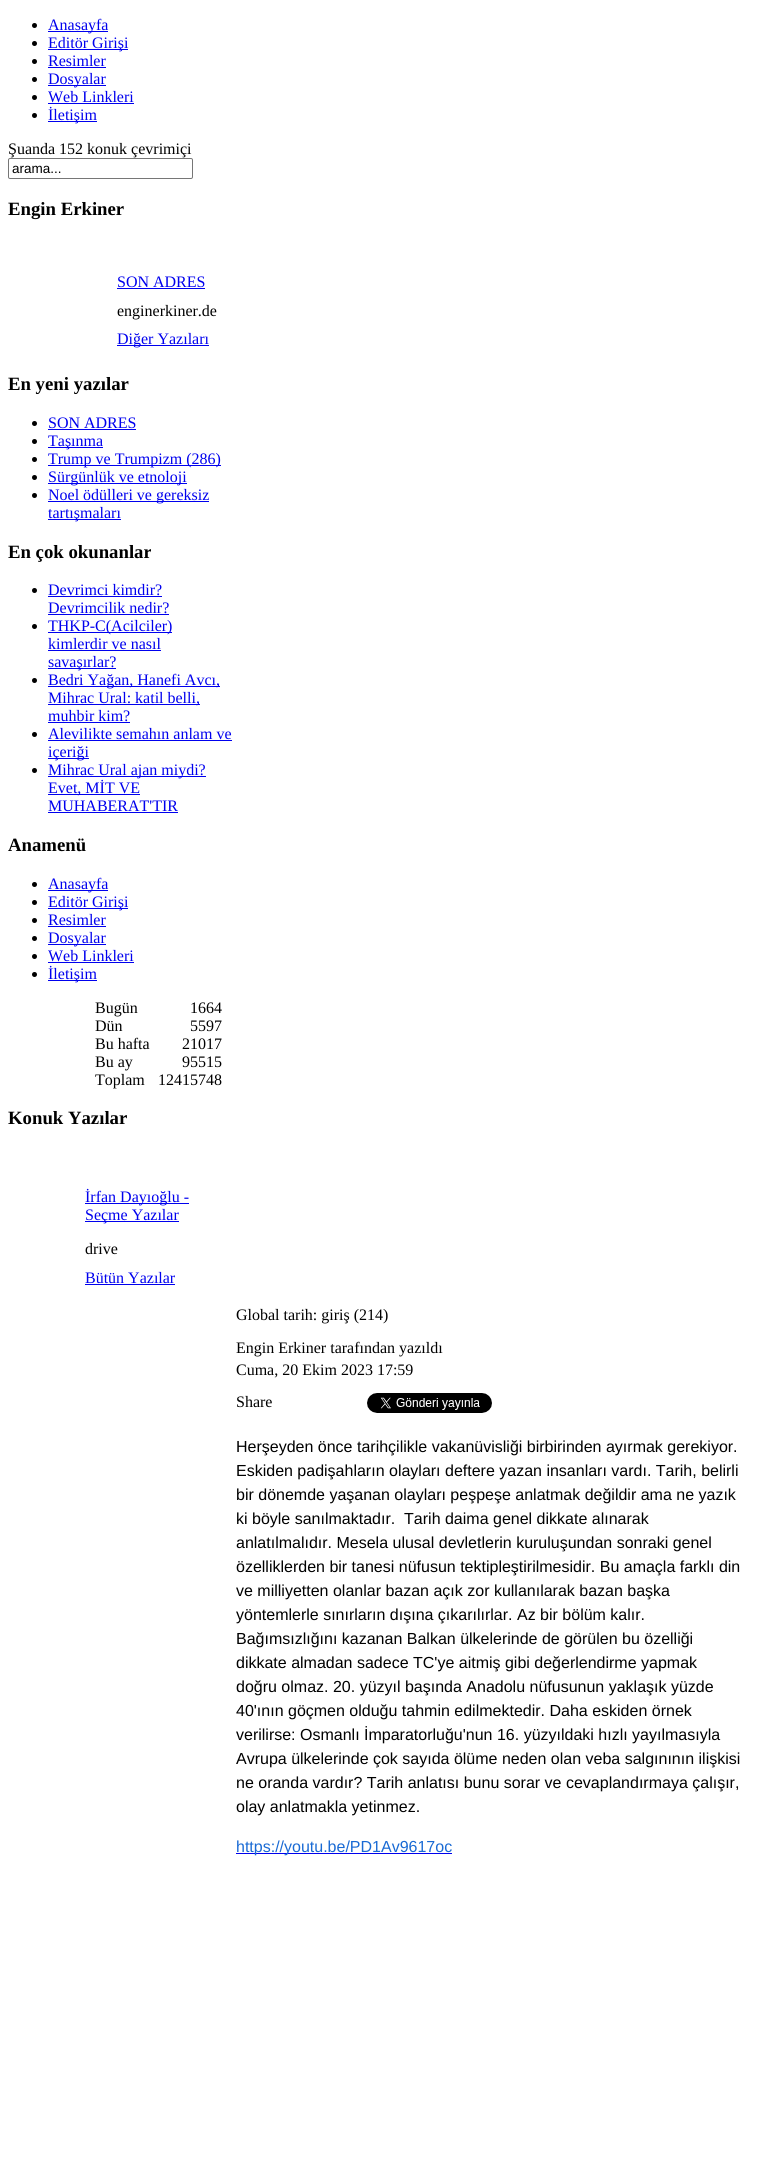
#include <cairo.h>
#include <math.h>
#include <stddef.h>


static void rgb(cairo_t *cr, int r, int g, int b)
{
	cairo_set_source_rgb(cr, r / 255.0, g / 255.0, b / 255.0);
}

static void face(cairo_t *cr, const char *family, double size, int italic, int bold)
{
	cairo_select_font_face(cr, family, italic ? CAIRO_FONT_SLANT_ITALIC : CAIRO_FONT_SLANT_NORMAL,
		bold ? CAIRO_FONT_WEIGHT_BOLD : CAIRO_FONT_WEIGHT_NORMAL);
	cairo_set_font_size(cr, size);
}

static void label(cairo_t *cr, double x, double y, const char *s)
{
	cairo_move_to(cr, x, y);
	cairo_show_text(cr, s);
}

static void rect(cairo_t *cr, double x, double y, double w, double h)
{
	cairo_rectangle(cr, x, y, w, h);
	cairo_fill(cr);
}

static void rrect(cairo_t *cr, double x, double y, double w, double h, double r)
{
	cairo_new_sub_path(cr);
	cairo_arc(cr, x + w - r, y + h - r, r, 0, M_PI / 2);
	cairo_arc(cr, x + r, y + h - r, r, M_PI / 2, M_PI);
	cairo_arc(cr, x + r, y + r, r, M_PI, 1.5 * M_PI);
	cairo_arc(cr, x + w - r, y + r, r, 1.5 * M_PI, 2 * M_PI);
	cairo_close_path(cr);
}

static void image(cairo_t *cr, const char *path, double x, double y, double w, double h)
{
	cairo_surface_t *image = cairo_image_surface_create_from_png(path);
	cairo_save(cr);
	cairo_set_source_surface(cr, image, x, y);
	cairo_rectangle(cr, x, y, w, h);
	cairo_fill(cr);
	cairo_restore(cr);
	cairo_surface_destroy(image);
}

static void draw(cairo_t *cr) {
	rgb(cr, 255, 255, 255);
	cairo_paint(cr);
	rgb(cr, 0, 0, 0);
	cairo_arc(cr, 34.5, 25.5, 2.5, 0, 2 * M_PI);
	cairo_fill(cr);
	rgb(cr, 0, 0, 238);
	rect(cr, 48, 31, 60, 1);
	face(cr, "Liberation Serif", 16, 0, 0);
	label(cr, 48, 30, "Anasayfa");
	rgb(cr, 0, 0, 0);
	cairo_new_path(cr);
	cairo_arc(cr, 34.5, 43.5, 2.5, 0, 2 * M_PI);
	cairo_fill(cr);
	rgb(cr, 0, 0, 238);
	rect(cr, 48, 49, 80, 1);
	label(cr, 48, 48, "Editör Girişi");
	rgb(cr, 0, 0, 0);
	cairo_new_path(cr);
	cairo_arc(cr, 34.5, 61.5, 2.5, 0, 2 * M_PI);
	cairo_fill(cr);
	rgb(cr, 0, 0, 238);
	label(cr, 48, 66, "Resimler");
	rect(cr, 48, 67, 58, 1);
	rgb(cr, 0, 0, 0);
	cairo_new_path(cr);
	cairo_arc(cr, 34.5, 79.5, 2.5, 0, 2 * M_PI);
	cairo_fill(cr);
	rgb(cr, 0, 0, 238);
	rect(cr, 48, 85, 58, 1);
	label(cr, 48, 84, "Dosyalar");
	rgb(cr, 0, 0, 0);
	cairo_new_path(cr);
	cairo_arc(cr, 34.5, 97.5, 2.5, 0, 2 * M_PI);
	cairo_fill(cr);
	rgb(cr, 0, 0, 238);
	label(cr, 48, 102, "Web Linkleri");
	rect(cr, 48, 103, 86, 1);
	rgb(cr, 0, 0, 0);
	cairo_new_path(cr);
	cairo_arc(cr, 34.5, 115.5, 2.5, 0, 2 * M_PI);
	cairo_fill(cr);
	rgb(cr, 0, 0, 238);
	rect(cr, 48, 121, 49, 1);
	label(cr, 48, 120, "İletişim");
	rgb(cr, 0, 0, 0);
	label(cr, 8, 154, "Şuanda 152 konuk çevrimiçi");
	rrect(cr, 8.5, 158.5, 184, 20, 1.5);
	rgb(cr, 118, 118, 118);
	cairo_set_line_width(cr, 1);
	cairo_stroke(cr);
	face(cr, "Liberation Sans", 13.5, 0, 0);
	rgb(cr, 0, 0, 0);
	label(cr, 12, 173, "arama...");
	face(cr, "Liberation Serif", 18.75, 0, 1);
	label(cr, 8, 215, "Engin Erkiner");
	face(cr, "Liberation Serif", 16, 0, 0);
	rgb(cr, 0, 0, 238);
	label(cr, 117, 287, "SON ADRES");
	rect(cr, 117, 288, 88, 1);
	rgb(cr, 0, 0, 0);
	label(cr, 117, 316, "enginerkiner.de");
	rgb(cr, 0, 0, 238);
	rect(cr, 117, 345, 92, 1);
	label(cr, 117, 344, "Diğer Yazıları");
	face(cr, "Liberation Serif", 18.75, 0, 1);
	rgb(cr, 0, 0, 0);
	label(cr, 8, 390, "En yeni yazılar");
	cairo_new_path(cr);
	cairo_arc(cr, 34.5, 423.5, 2.5, 0, 2 * M_PI);
	cairo_fill(cr);
	face(cr, "Liberation Serif", 16, 0, 0);
	rgb(cr, 0, 0, 238);
	label(cr, 48, 428, "SON ADRES");
	rect(cr, 48, 429, 88, 1);
	rgb(cr, 0, 0, 0);
	cairo_new_path(cr);
	cairo_arc(cr, 34.5, 441.5, 2.5, 0, 2 * M_PI);
	cairo_fill(cr);
	rgb(cr, 0, 0, 238);
	rect(cr, 48, 447, 55, 1);
	label(cr, 48, 446, "Taşınma");
	rgb(cr, 0, 0, 0);
	cairo_new_path(cr);
	cairo_arc(cr, 34.5, 459.5, 2.5, 0, 2 * M_PI);
	cairo_fill(cr);
	rgb(cr, 0, 0, 238);
	rect(cr, 48, 465, 173, 1);
	label(cr, 48, 464, "Trump ve Trumpizm (286)");
	rgb(cr, 0, 0, 0);
	cairo_new_path(cr);
	cairo_arc(cr, 34.5, 477.5, 2.5, 0, 2 * M_PI);
	cairo_fill(cr);
	rgb(cr, 0, 0, 238);
	rect(cr, 48, 483, 139, 1);
	label(cr, 48, 482, "Sürgünlük ve etnoloji");
	rgb(cr, 0, 0, 0);
	cairo_new_path(cr);
	cairo_arc(cr, 34.5, 495.5, 2.5, 0, 2 * M_PI);
	cairo_fill(cr);
	rgb(cr, 0, 0, 238);
	rect(cr, 48, 501, 161, 1);
	label(cr, 48, 500, "Noel ödülleri ve gereksiz");
	rect(cr, 48, 519, 73, 1);
	label(cr, 48, 518, "tartışmaları");
	face(cr, "Liberation Serif", 18.75, 0, 1);
	rgb(cr, 0, 0, 0);
	label(cr, 8, 558, "En çok okunanlar");
	cairo_new_path(cr);
	cairo_arc(cr, 34.5, 590.5, 2.5, 0, 2 * M_PI);
	cairo_fill(cr);
	face(cr, "Liberation Serif", 16, 0, 0);
	rgb(cr, 0, 0, 238);
	label(cr, 48, 595, "Devrimci kimdir?");
	rect(cr, 48, 596, 114, 1);
	label(cr, 48, 613, "Devrimcilik nedir?");
	rect(cr, 48, 614, 121, 1);
	rgb(cr, 0, 0, 0);
	cairo_new_path(cr);
	cairo_arc(cr, 34.5, 626.5, 2.5, 0, 2 * M_PI);
	cairo_fill(cr);
	rgb(cr, 0, 0, 238);
	rect(cr, 48, 632, 124, 1);
	label(cr, 48, 631, "THKP-C(Acilciler)");
	label(cr, 48, 649, "kimlerdir ve nasıl");
	rect(cr, 48, 650, 113, 1);
	rect(cr, 48, 668, 68, 1);
	label(cr, 48, 667, "savaşırlar?");
	rgb(cr, 0, 0, 0);
	cairo_new_path(cr);
	cairo_arc(cr, 34.5, 680.5, 2.5, 0, 2 * M_PI);
	cairo_fill(cr);
	rgb(cr, 0, 0, 238);
	rect(cr, 48, 686, 172, 1);
	label(cr, 48, 685, "Bedri Yağan, Hanefi Avcı,");
	rect(cr, 48, 704, 152, 1);
	label(cr, 48, 703, "Mihrac Ural: katil belli,");
	label(cr, 48, 721, "muhbir kim?");
	rect(cr, 48, 722, 82, 1);
	rgb(cr, 0, 0, 0);
	cairo_new_path(cr);
	cairo_arc(cr, 34.5, 734.5, 2.5, 0, 2 * M_PI);
	cairo_fill(cr);
	rgb(cr, 0, 0, 238);
	label(cr, 48, 739, "Alevilikte semahın anlam ve");
	rect(cr, 48, 740, 184, 1);
	rect(cr, 48, 758, 41, 1);
	label(cr, 48, 757, "içeriği");
	rgb(cr, 0, 0, 0);
	cairo_new_path(cr);
	cairo_arc(cr, 34.5, 770.5, 2.5, 0, 2 * M_PI);
	cairo_fill(cr);
	rgb(cr, 0, 0, 238);
	rect(cr, 48, 776, 158, 1);
	label(cr, 48, 775, "Mihrac Ural ajan miydi?");
	rect(cr, 48, 794, 92, 1);
	label(cr, 48, 793, "Evet, MİT VE");
	label(cr, 48, 811, "MUHABERAT'TIR");
	rect(cr, 48, 812, 130, 1);
	face(cr, "Liberation Serif", 18.75, 0, 1);
	rgb(cr, 0, 0, 0);
	label(cr, 8, 851, "Anamenü");
	cairo_new_path(cr);
	cairo_arc(cr, 34.5, 884.5, 2.5, 0, 2 * M_PI);
	cairo_fill(cr);
	rgb(cr, 0, 0, 238);
	rect(cr, 48, 890, 60, 1);
	face(cr, "Liberation Serif", 16, 0, 0);
	label(cr, 48, 889, "Anasayfa");
	rgb(cr, 0, 0, 0);
	cairo_new_path(cr);
	cairo_arc(cr, 34.5, 902.5, 2.5, 0, 2 * M_PI);
	cairo_fill(cr);
	rgb(cr, 0, 0, 238);
	rect(cr, 48, 908, 80, 1);
	label(cr, 48, 907, "Editör Girişi");
	rgb(cr, 0, 0, 0);
	cairo_new_path(cr);
	cairo_arc(cr, 34.5, 920.5, 2.5, 0, 2 * M_PI);
	cairo_fill(cr);
	rgb(cr, 0, 0, 238);
	label(cr, 48, 925, "Resimler");
	rect(cr, 48, 926, 58, 1);
	rgb(cr, 0, 0, 0);
	cairo_new_path(cr);
	cairo_arc(cr, 34.5, 938.5, 2.5, 0, 2 * M_PI);
	cairo_fill(cr);
	rgb(cr, 0, 0, 238);
	rect(cr, 48, 944, 58, 1);
	label(cr, 48, 943, "Dosyalar");
	rgb(cr, 0, 0, 0);
	cairo_new_path(cr);
	cairo_arc(cr, 34.5, 956.5, 2.5, 0, 2 * M_PI);
	cairo_fill(cr);
	rgb(cr, 0, 0, 238);
	label(cr, 48, 961, "Web Linkleri");
	rect(cr, 48, 962, 86, 1);
	rgb(cr, 0, 0, 0);
	cairo_new_path(cr);
	cairo_arc(cr, 34.5, 974.5, 2.5, 0, 2 * M_PI);
	cairo_fill(cr);
	rgb(cr, 0, 0, 238);
	rect(cr, 48, 980, 49, 1);
	label(cr, 48, 979, "İletişim");
	rgb(cr, 0, 0, 0);
	label(cr, 95, 1013, "Bugün");
	label(cr, 190, 1013, "1664");
	label(cr, 95, 1031, "Dün");
	label(cr, 190, 1031, "5597");
	label(cr, 95, 1049, "Bu hafta");
	label(cr, 182, 1049, "21017");
	label(cr, 95, 1067, "Bu ay");
	label(cr, 182, 1067, "95515");
	label(cr, 95, 1085, "Toplam");
	label(cr, 158, 1085, "12415748");
	face(cr, "Liberation Serif", 18.75, 0, 1);
	label(cr, 8, 1124, "Konuk Yazılar");
	rgb(cr, 0, 0, 238);
	rect(cr, 85, 1203, 104, 1);
	face(cr, "Liberation Serif", 16, 0, 0);
	label(cr, 85, 1202, "İrfan Dayıoğlu -");
	rect(cr, 85, 1221, 94, 1);
	label(cr, 85, 1220, "Seçme Yazılar");
	rgb(cr, 0, 0, 0);
	label(cr, 85, 1254, "drive");
	rgb(cr, 0, 0, 238);
	label(cr, 85, 1283, "Bütün Yazılar");
	rect(cr, 85, 1284, 90, 1);
	rgb(cr, 0, 0, 0);
	label(cr, 236, 1320, "Global tarih: giriş (214)");
	label(cr, 236, 1353, "Engin Erkiner tarafından yazıldı");
	label(cr, 236, 1375, "Cuma, 20 Ekim 2023 17:59");
	label(cr, 236, 1407, "Share");
	image(cr, "image0.png", 367, 1393, 125, 20);
	face(cr, "Liberation Sans", 16, 0, 0);
	label(cr, 236, 1452, "Herşeyden önce tarihçilikle vakanüvisliği birbirinden ayırmak gerekiyor.");
	label(cr, 236, 1476, "Eskiden padişahların olayları deftere yazan insanları vardı. Tarih, belirli");
	label(cr, 236, 1500, "bir dönemde yaşanan olayları peşpeşe anlatmak değildir ama ne yazık");
	label(cr, 236, 1524, "ki böyle sanılmaktadır.  Tarih daima genel dikkate alınarak");
	label(cr, 236, 1548, "anlatılmalıdır. Mesela ulusal devletlerin kuruluşundan sonraki genel");
	label(cr, 236, 1572, "özelliklerden bir tanesi nüfusun tektipleştirilmesidir. Bu amaçla farklı din");
	label(cr, 236, 1596, "ve milliyetten olanlar bazan açık zor kullanılarak bazan başka");
	label(cr, 236, 1620, "yöntemlerle sınırların dışına çıkarılırlar. Az bir bölüm kalır.");
	label(cr, 236, 1644, "Bağımsızlığını kazanan Balkan ülkelerinde de görülen bu özelliği");
	label(cr, 236, 1668, "dikkate almadan sadece TC'ye aitmiş gibi değerlendirme yapmak");
	label(cr, 236, 1692, "doğru olmaz. 20. yüzyıl başında Anadolu nüfusunun yaklaşık yüzde");
	label(cr, 236, 1716, "40'ının göçmen olduğu tahmin edilmektedir. Daha eskiden örnek");
	label(cr, 236, 1740, "verilirse: Osmanlı İmparatorluğu'nun 16. yüzyıldaki hızlı yayılmasıyla");
	label(cr, 236, 1764, "Avrupa ülkelerinde çok sayıda ölüme neden olan veba salgınının ilişkisi");
	label(cr, 236, 1788, "ne oranda vardır? Tarih anlatısı bunu sorar ve cevaplandırmaya çalışır,");
	label(cr, 236, 1812, "olay anlatmakla yetinmez.");
	rgb(cr, 0, 0, 238);
	rect(cr, 236, 1853, 216, 1);
	rgb(cr, 25, 106, 212);
	label(cr, 236, 1852, "https://youtu.be/PD1Av9617oc");
}

int main(void) {
	cairo_surface_t *surface = cairo_image_surface_create(CAIRO_FORMAT_RGB24, 763, 2158);
	cairo_t *cr = cairo_create(surface);
	cairo_font_options_t *options = cairo_font_options_create();
	cairo_font_options_set_hint_metrics(options, CAIRO_HINT_METRICS_OFF);
	cairo_font_options_set_hint_style(options, CAIRO_HINT_STYLE_NONE);
	cairo_set_font_options(cr, options);
	cairo_set_miter_limit(cr, 4);
	draw(cr);
	cairo_surface_write_to_png(surface, "render.png");
	cairo_font_options_destroy(options);
	cairo_destroy(cr);
	cairo_surface_destroy(surface);
	return 0;
}
